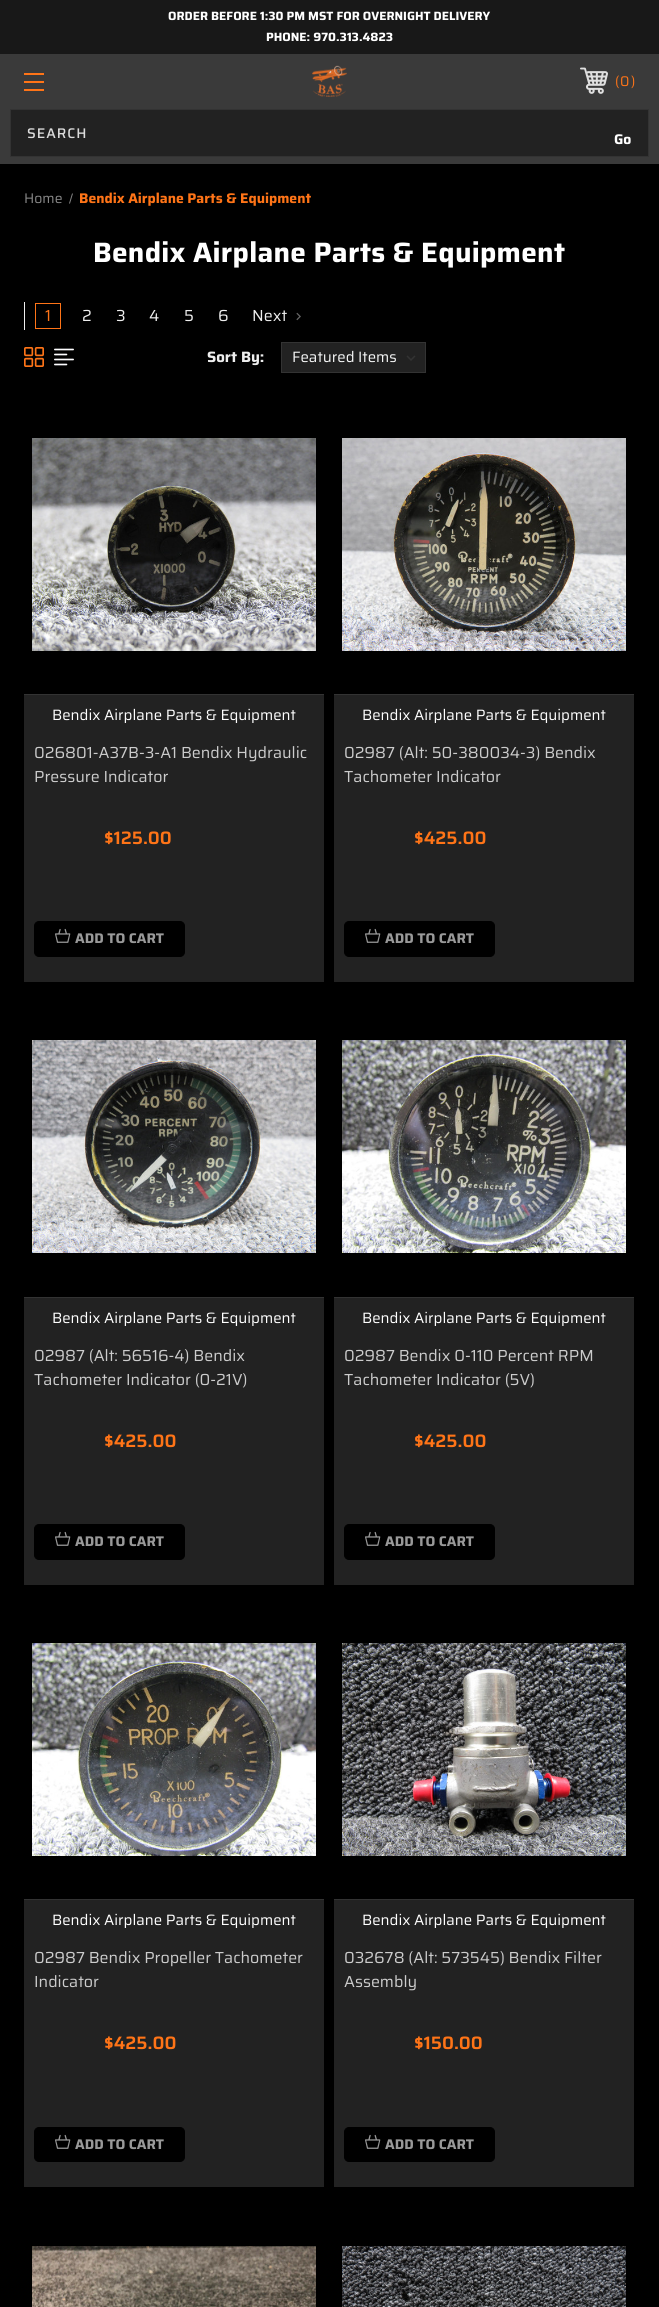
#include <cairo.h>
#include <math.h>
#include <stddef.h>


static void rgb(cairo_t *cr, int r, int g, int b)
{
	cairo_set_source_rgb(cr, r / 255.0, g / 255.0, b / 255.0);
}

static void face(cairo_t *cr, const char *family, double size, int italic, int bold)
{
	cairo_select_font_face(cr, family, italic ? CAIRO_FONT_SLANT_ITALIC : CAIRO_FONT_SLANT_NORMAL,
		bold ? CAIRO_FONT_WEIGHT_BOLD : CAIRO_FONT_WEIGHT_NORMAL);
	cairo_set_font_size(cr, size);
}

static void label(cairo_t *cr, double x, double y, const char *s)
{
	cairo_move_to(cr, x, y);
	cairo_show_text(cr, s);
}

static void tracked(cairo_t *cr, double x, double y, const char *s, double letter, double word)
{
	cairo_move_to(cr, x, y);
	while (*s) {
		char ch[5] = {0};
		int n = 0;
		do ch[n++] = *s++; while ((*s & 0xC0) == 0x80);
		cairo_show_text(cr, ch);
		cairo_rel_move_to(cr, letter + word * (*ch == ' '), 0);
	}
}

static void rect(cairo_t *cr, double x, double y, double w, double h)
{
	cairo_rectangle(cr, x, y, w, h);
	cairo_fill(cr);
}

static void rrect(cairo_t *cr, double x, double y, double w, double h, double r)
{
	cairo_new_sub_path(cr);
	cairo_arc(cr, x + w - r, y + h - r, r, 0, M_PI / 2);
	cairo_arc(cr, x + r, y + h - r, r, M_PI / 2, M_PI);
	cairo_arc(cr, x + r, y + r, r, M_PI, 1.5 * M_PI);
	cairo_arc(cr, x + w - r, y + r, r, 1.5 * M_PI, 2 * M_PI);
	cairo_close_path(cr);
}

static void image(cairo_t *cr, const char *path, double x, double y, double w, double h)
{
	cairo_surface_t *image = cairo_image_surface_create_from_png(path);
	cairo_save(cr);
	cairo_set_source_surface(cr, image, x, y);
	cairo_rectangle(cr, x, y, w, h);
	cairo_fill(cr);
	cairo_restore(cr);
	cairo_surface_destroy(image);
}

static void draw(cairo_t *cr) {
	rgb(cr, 0, 0, 0);
	cairo_paint(cr);
	rgb(cr, 24, 24, 24);
	rect(cr, 0, 0, 659, 54);
	face(cr, "Saira", 12, 0, 1);
	rgb(cr, 255, 255, 255);
	label(cr, 168, 20, "ORDER BEFORE 1:30 PM MST FOR OVERNIGHT DELIVERY");
	label(cr, 266, 41, "PHONE: 970.313.4823");
	rgb(cr, 58, 58, 58);
	rect(cr, 0, 54, 659, 110);
	rgb(cr, 255, 116, 23);
	rect(cr, 24, 81, 20, 2);
	rect(cr, 24, 73, 20, 2);
	rect(cr, 24, 89, 20, 2);
	image(cr, "image0.png", 312, 65, 35, 32);
	image(cr, "image1.png", 580, 67, 28, 27);
	face(cr, "Saira", 14, 0, 0);
	label(cr, 615, 86, "(");
	label(cr, 620, 86, "0");
	label(cr, 631, 86, ")");
	rgb(cr, 34, 34, 34);
	cairo_rectangle(cr, 10.5, 109.5, 638, 47);
	cairo_fill_preserve(cr);
	rgb(cr, 51, 51, 51);
	cairo_set_line_width(cr, 1);
	cairo_stroke(cr);
	face(cr, "Saira Medium", 14, 0, 0);
	rgb(cr, 221, 221, 221);
	tracked(cr, 27, 138, "SEARCH", 1, 0);
	face(cr, "Saira", 14, 0, 1);
	rgb(cr, 255, 255, 255);
	label(cr, 614, 144, "Go");
	face(cr, "Saira", 14, 0, 0);
	rgb(cr, 136, 136, 136);
	label(cr, 24, 203, "Home");
	cairo_new_path(cr);
	cairo_move_to(cr, 72, 193.5);
	cairo_line_to(cr, 73, 193.5);
	cairo_line_to(cr, 70, 203.5);
	cairo_line_to(cr, 69, 203.5);
	cairo_close_path(cr);
	cairo_fill(cr);
	face(cr, "Saira", 14, 0, 1);
	rgb(cr, 255, 116, 23);
	label(cr, 79, 203, "Bendix Airplane Parts & Equipment");
	face(cr, "Saira", 28, 0, 1);
	rgb(cr, 255, 255, 255);
	tracked(cr, 93, 262, "Bendix Airplane Parts & Equipment", 0.25, 0);
	rgb(cr, 238, 238, 238);
	rect(cr, 24, 302, 1, 28);
	cairo_rectangle(cr, 35.5, 303.5, 25, 25);
	rgb(cr, 255, 116, 23);
	cairo_stroke(cr);
	face(cr, "Saira", 16, 0, 0);
	label(cr, 45, 321, "1");
	rgb(cr, 238, 238, 238);
	label(cr, 82, 321, "2");
	label(cr, 116, 321, "3");
	label(cr, 149, 321, "4");
	label(cr, 184, 321, "5");
	label(cr, 218, 321, "6");
	label(cr, 252, 321, "Next");
	image(cr, "image2.png", 296, 312, 5, 9);
	image(cr, "image3.png", 24, 347, 20, 20);
	image(cr, "image4.png", 54, 348, 20, 18);
	face(cr, "Saira", 15, 0, 1);
	label(cr, 207, 362, "Sort By:");
	rgb(cr, 34, 34, 34);
	rect(cr, 282, 343, 143, 29);
	image(cr, "image5.png", 406, 355, 10, 6);
	cairo_rectangle(cr, 281.5, 342.5, 144, 30);
	rgb(cr, 51, 51, 51);
	cairo_stroke(cr);
	face(cr, "Saira", 15, 0, 0);
	rgb(cr, 245, 246, 246);
	label(cr, 292, 362, "Featured Items");
	rgb(cr, 34, 34, 34);
	rect(cr, 24, 695, 300, 287);
	image(cr, "image6.png", 32, 438, 284, 213);
	rgb(cr, 51, 51, 51);
	rect(cr, 24, 694, 300, 1);
	rgb(cr, 255, 255, 255);
	label(cr, 52, 720, "Bendix Airplane Parts & Equipment");
	face(cr, "Saira", 16, 0, 0);
	rgb(cr, 204, 204, 204);
	label(cr, 34, 758, "026801-A37B-3-A1 Bendix Hydraulic");
	label(cr, 34, 782, "Pressure Indicator");
	face(cr, "Saira SemiBold", 18, 0, 0);
	rgb(cr, 255, 116, 23);
	label(cr, 104, 844, "$125.00");
	rgb(cr, 0, 0, 0);
	rrect(cr, 34.5, 921.5, 150, 35, 4.5);
	cairo_fill_preserve(cr);
	cairo_stroke(cr);
	image(cr, "image7.png", 55, 928, 16, 15);
	face(cr, "Saira", 14, 0, 1);
	rgb(cr, 153, 153, 153);
	label(cr, 75, 943, "ADD TO CART");
	rgb(cr, 34, 34, 34);
	rect(cr, 334, 695, 300, 287);
	image(cr, "image8.png", 342, 438, 284, 213);
	rgb(cr, 51, 51, 51);
	rect(cr, 334, 694, 300, 1);
	face(cr, "Saira", 15, 0, 0);
	rgb(cr, 255, 255, 255);
	label(cr, 362, 720, "Bendix Airplane Parts & Equipment");
	face(cr, "Saira", 16, 0, 0);
	rgb(cr, 204, 204, 204);
	label(cr, 344, 758, "02987 (Alt: 50-380034-3) Bendix");
	label(cr, 344, 782, "Tachometer Indicator");
	face(cr, "Saira SemiBold", 18, 0, 0);
	rgb(cr, 255, 116, 23);
	label(cr, 414, 844, "$425.00");
	rgb(cr, 0, 0, 0);
	rrect(cr, 344.5, 921.5, 150, 35, 4.5);
	cairo_fill_preserve(cr);
	cairo_stroke(cr);
	image(cr, "image7.png", 365, 928, 16, 15);
	face(cr, "Saira", 14, 0, 1);
	rgb(cr, 153, 153, 153);
	label(cr, 385, 943, "ADD TO CART");
	rgb(cr, 34, 34, 34);
	rect(cr, 24, 1298, 300, 287);
	image(cr, "image9.png", 32, 1040, 284, 213);
	rgb(cr, 51, 51, 51);
	rect(cr, 24, 1297, 300, 1);
	face(cr, "Saira", 15, 0, 0);
	rgb(cr, 255, 255, 255);
	label(cr, 52, 1323, "Bendix Airplane Parts & Equipment");
	face(cr, "Saira", 16, 0, 0);
	rgb(cr, 204, 204, 204);
	label(cr, 34, 1361, "02987 (Alt: 56516-4) Bendix");
	label(cr, 34, 1385, "Tachometer Indicator (0-21V)");
	face(cr, "Saira SemiBold", 18, 0, 0);
	rgb(cr, 255, 116, 23);
	label(cr, 104, 1447, "$425.00");
	rgb(cr, 0, 0, 0);
	rrect(cr, 34.5, 1524.5, 150, 35, 4.5);
	cairo_fill_preserve(cr);
	cairo_stroke(cr);
	image(cr, "image7.png", 55, 1531, 16, 15);
	face(cr, "Saira", 14, 0, 1);
	rgb(cr, 153, 153, 153);
	label(cr, 75, 1546, "ADD TO CART");
	rgb(cr, 34, 34, 34);
	rect(cr, 334, 1298, 300, 287);
	image(cr, "image10.png", 342, 1040, 284, 213);
	rgb(cr, 51, 51, 51);
	rect(cr, 334, 1297, 300, 1);
	face(cr, "Saira", 15, 0, 0);
	rgb(cr, 255, 255, 255);
	label(cr, 362, 1323, "Bendix Airplane Parts & Equipment");
	face(cr, "Saira", 16, 0, 0);
	rgb(cr, 204, 204, 204);
	label(cr, 344, 1361, "02987 Bendix 0-110 Percent RPM");
	label(cr, 344, 1385, "Tachometer Indicator (5V)");
	face(cr, "Saira SemiBold", 18, 0, 0);
	rgb(cr, 255, 116, 23);
	label(cr, 414, 1447, "$425.00");
	rgb(cr, 0, 0, 0);
	rrect(cr, 344.5, 1524.5, 150, 35, 4.5);
	cairo_fill_preserve(cr);
	cairo_stroke(cr);
	image(cr, "image7.png", 365, 1531, 16, 15);
	face(cr, "Saira", 14, 0, 1);
	rgb(cr, 153, 153, 153);
	label(cr, 385, 1546, "ADD TO CART");
	rgb(cr, 34, 34, 34);
	rect(cr, 24, 1900, 300, 287);
	image(cr, "image11.png", 32, 1643, 284, 213);
	rgb(cr, 51, 51, 51);
	rect(cr, 24, 1899, 300, 1);
	face(cr, "Saira", 15, 0, 0);
	rgb(cr, 255, 255, 255);
	label(cr, 52, 1925, "Bendix Airplane Parts & Equipment");
	face(cr, "Saira", 16, 0, 0);
	rgb(cr, 204, 204, 204);
	label(cr, 34, 1963, "02987 Bendix Propeller Tachometer");
	label(cr, 34, 1987, "Indicator");
	face(cr, "Saira SemiBold", 18, 0, 0);
	rgb(cr, 255, 116, 23);
	label(cr, 104, 2049, "$425.00");
	rgb(cr, 0, 0, 0);
	rrect(cr, 34.5, 2127.5, 150, 34, 4.5);
	cairo_fill_preserve(cr);
	cairo_stroke(cr);
	image(cr, "image7.png", 55, 2134, 16, 15);
	face(cr, "Saira", 14, 0, 1);
	rgb(cr, 153, 153, 153);
	label(cr, 75, 2149, "ADD TO CART");
	rgb(cr, 34, 34, 34);
	rect(cr, 334, 1900, 300, 287);
	image(cr, "image12.png", 342, 1643, 284, 213);
	rgb(cr, 51, 51, 51);
	rect(cr, 334, 1899, 300, 1);
	face(cr, "Saira", 15, 0, 0);
	rgb(cr, 255, 255, 255);
	label(cr, 362, 1925, "Bendix Airplane Parts & Equipment");
	face(cr, "Saira", 16, 0, 0);
	rgb(cr, 204, 204, 204);
	label(cr, 344, 1963, "032678 (Alt: 573545) Bendix Filter");
	label(cr, 344, 1987, "Assembly");
	face(cr, "Saira SemiBold", 18, 0, 0);
	rgb(cr, 255, 116, 23);
	label(cr, 414, 2049, "$150.00");
	rgb(cr, 0, 0, 0);
	rrect(cr, 344.5, 2127.5, 150, 34, 4.5);
	cairo_fill_preserve(cr);
	cairo_stroke(cr);
	image(cr, "image7.png", 365, 2134, 16, 15);
	face(cr, "Saira", 14, 0, 1);
	rgb(cr, 153, 153, 153);
	label(cr, 385, 2149, "ADD TO CART");
	image(cr, "image13.png", 32, 2246, 284, 61);
	image(cr, "image14.png", 342, 2246, 284, 61);
}

int main(void) {
	cairo_surface_t *surface = cairo_image_surface_create(CAIRO_FORMAT_RGB24, 659, 2307);
	cairo_t *cr = cairo_create(surface);
	cairo_font_options_t *options = cairo_font_options_create();
	cairo_font_options_set_hint_metrics(options, CAIRO_HINT_METRICS_OFF);
	cairo_font_options_set_hint_style(options, CAIRO_HINT_STYLE_NONE);
	cairo_set_font_options(cr, options);
	cairo_set_miter_limit(cr, 4);
	draw(cr);
	cairo_surface_write_to_png(surface, "render.png");
	cairo_font_options_destroy(options);
	cairo_destroy(cr);
	cairo_surface_destroy(surface);
	return 0;
}
